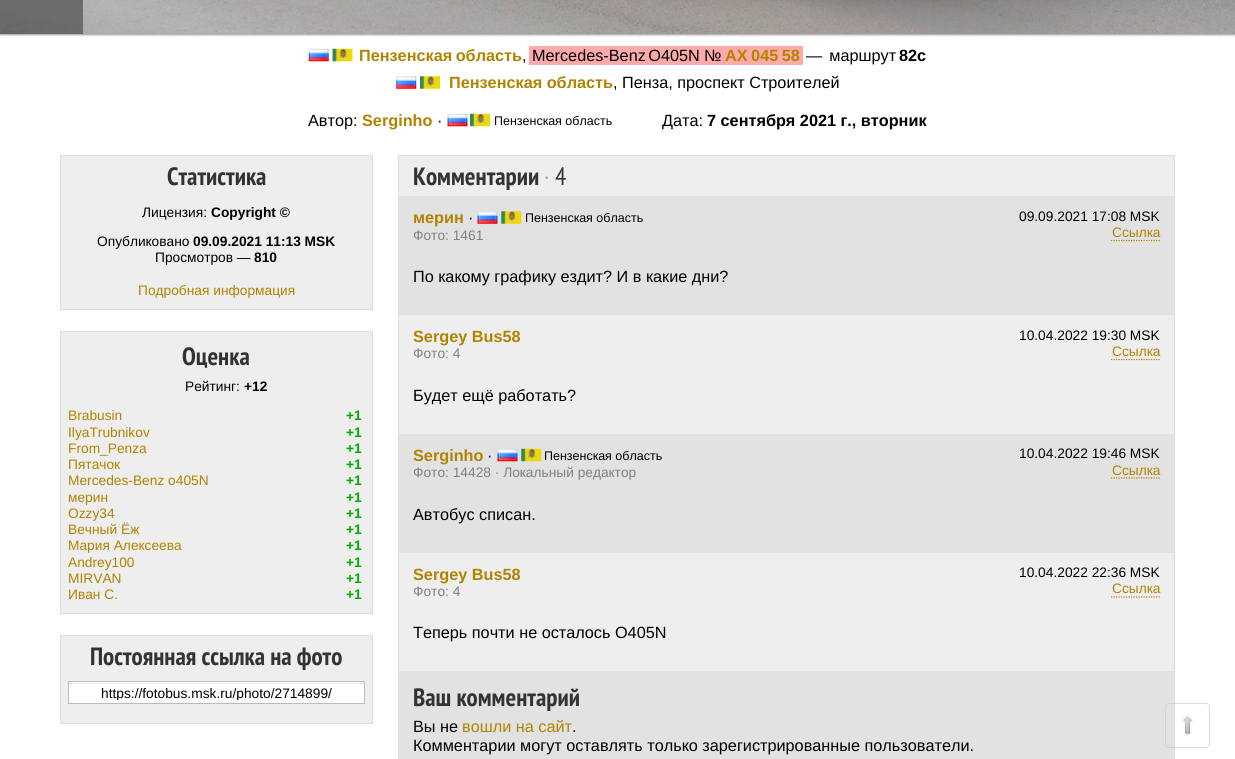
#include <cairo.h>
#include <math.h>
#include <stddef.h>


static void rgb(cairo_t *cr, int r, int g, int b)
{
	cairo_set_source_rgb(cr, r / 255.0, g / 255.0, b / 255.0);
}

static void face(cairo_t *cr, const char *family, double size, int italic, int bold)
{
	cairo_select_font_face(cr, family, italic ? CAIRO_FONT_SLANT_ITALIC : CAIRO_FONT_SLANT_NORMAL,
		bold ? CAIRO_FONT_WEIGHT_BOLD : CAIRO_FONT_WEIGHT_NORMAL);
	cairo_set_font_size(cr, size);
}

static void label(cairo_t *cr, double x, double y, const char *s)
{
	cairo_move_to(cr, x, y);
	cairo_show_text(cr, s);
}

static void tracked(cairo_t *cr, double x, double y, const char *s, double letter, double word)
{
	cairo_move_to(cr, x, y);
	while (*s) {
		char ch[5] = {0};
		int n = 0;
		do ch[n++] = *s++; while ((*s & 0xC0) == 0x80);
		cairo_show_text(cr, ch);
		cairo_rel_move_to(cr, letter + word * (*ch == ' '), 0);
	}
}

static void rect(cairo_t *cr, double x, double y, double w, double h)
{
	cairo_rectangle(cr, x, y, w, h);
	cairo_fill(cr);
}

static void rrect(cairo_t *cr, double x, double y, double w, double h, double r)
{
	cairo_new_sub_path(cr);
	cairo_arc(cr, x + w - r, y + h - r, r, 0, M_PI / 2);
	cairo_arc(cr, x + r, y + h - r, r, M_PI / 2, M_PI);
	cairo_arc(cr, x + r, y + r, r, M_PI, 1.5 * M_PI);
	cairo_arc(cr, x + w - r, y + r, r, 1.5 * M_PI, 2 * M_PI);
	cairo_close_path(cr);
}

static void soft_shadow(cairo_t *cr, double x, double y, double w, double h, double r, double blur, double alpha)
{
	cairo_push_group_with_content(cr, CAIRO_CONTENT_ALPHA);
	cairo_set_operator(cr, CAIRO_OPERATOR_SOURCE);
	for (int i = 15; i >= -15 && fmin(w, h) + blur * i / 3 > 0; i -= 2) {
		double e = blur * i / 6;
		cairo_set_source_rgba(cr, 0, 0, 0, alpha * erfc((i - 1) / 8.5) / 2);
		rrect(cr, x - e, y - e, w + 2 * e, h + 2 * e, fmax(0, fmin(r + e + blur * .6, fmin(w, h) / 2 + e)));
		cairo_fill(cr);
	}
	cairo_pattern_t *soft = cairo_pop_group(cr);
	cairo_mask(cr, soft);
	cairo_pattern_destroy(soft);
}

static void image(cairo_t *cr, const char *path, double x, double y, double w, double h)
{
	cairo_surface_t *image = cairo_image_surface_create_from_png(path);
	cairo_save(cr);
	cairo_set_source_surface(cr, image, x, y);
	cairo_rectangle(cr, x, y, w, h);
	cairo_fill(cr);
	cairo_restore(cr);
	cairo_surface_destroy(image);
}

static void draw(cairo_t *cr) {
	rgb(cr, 255, 255, 255);
	cairo_paint(cr);
	rgb(cr, 0, 0, 0);
	soft_shadow(cr, 0, -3, 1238, 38, 0, 1, 0.4);
	image(cr, "image0.png", 0, 0, 1235, 34);
	cairo_set_source_rgba(cr, 0.314, 0.314, 0.314, 0.7);
	rect(cr, 0, 0, 83, 34);
	image(cr, "image1.png", 308, 48, 21, 14);
	image(cr, "image2.png", 332, 48, 21, 14);
	face(cr, "Liberation Sans", 16.25, 0, 1);
	rgb(cr, 176, 131, 0);
	tracked(cr, 359, 61, "Пензенская область", 0, -1);
	face(cr, "Liberation Sans", 16.25, 0, 0);
	rgb(cr, 0, 0, 0);
	label(cr, 522, 61, ",");
	rgb(cr, 255, 170, 170);
	rect(cr, 529, 46, 274, 19);
	rgb(cr, 0, 0, 0);
	tracked(cr, 532, 61, "Mercedes-Benz O405N", 0, -2);
	label(cr, 704, 61, "№");
	face(cr, "Liberation Sans", 16.25, 0, 1);
	rgb(cr, 176, 131, 0);
	tracked(cr, 725, 61, "АХ 045 58", 0, -1);
	face(cr, "Liberation Sans", 16.25, 0, 0);
	rgb(cr, 0, 0, 0);
	tracked(cr, 806, 61, "—  маршрут", 0, -1);
	face(cr, "Liberation Sans", 16.25, 0, 1);
	label(cr, 899, 61, "82c");
	image(cr, "image3.png", 396, 76, 21, 13);
	image(cr, "image4.png", 420, 76, 20, 13);
	rgb(cr, 176, 131, 0);
	label(cr, 449, 88, "Пензенская область");
	face(cr, "Liberation Sans", 16.25, 0, 0);
	rgb(cr, 0, 0, 0);
	label(cr, 613, 88, ", Пенза, проспект Строителей");
	label(cr, 308, 126, "Автор:");
	face(cr, "Liberation Sans", 16.25, 0, 1);
	rgb(cr, 176, 131, 0);
	label(cr, 362, 126, "Serginho");
	face(cr, "Liberation Sans", 16.25, 0, 0);
	rgb(cr, 0, 0, 0);
	label(cr, 437, 126, "·");
	image(cr, "image5.png", 447, 113, 21, 14);
	image(cr, "image6.png", 470, 113, 20, 14);
	face(cr, "Liberation Sans", 12.5, 0, 0);
	label(cr, 494, 125, "Пензенская область");
	face(cr, "Liberation Sans", 16.25, 0, 0);
	label(cr, 662, 126, "Дата:");
	face(cr, "Liberation Sans", 16.25, 0, 1);
	label(cr, 707, 126, "7 сентября 2021 г., вторник");
	rgb(cr, 238, 238, 238);
	cairo_rectangle(cr, 60.5, 155.5, 312, 154);
	cairo_fill_preserve(cr);
	rgb(cr, 221, 221, 221);
	cairo_set_line_width(cr, 1);
	cairo_stroke(cr);
	face(cr, "PT Sans Narrow", 25, 0, 1);
	rgb(cr, 51, 51, 51);
	label(cr, 167, 185, "Статистика");
	face(cr, "Liberation Sans", 13.75, 0, 0);
	rgb(cr, 0, 0, 0);
	label(cr, 142, 217, "Лицензия:");
	face(cr, "Liberation Sans", 13.75, 0, 1);
	label(cr, 211, 217, "Copyright ©");
	face(cr, "Liberation Sans", 13.75, 0, 0);
	label(cr, 97, 246, "Опубликовано");
	face(cr, "Liberation Sans", 13.75, 0, 1);
	label(cr, 193, 246, "09.09.2021 11:13 MSK");
	face(cr, "Liberation Sans", 13.75, 0, 0);
	label(cr, 155, 262, "Просмотров —");
	face(cr, "Liberation Sans", 13.75, 0, 1);
	label(cr, 254, 262, "810");
	face(cr, "Liberation Sans", 13.75, 0, 0);
	rgb(cr, 176, 131, 0);
	label(cr, 138, 295, "Подробная информация");
	rgb(cr, 238, 238, 238);
	cairo_rectangle(cr, 60.5, 331.5, 312, 282);
	cairo_fill_preserve(cr);
	rgb(cr, 221, 221, 221);
	cairo_stroke(cr);
	face(cr, "PT Sans Narrow", 25, 0, 1);
	rgb(cr, 51, 51, 51);
	label(cr, 182, 365, "Оценка");
	face(cr, "Liberation Sans", 13.75, 0, 0);
	rgb(cr, 0, 0, 0);
	label(cr, 185, 391, "Рейтинг:");
	face(cr, "Liberation Sans", 13.75, 0, 1);
	label(cr, 244, 391, "+12");
	face(cr, "Liberation Sans", 13.75, 0, 0);
	rgb(cr, 176, 131, 0);
	label(cr, 68, 420, "Brabusin");
	face(cr, "Liberation Sans", 13.75, 0, 1);
	rgb(cr, 0, 170, 0);
	label(cr, 346, 420, "+1");
	face(cr, "Liberation Sans", 13.75, 0, 0);
	rgb(cr, 176, 131, 0);
	label(cr, 68, 437, "IlyaTrubnikov");
	face(cr, "Liberation Sans", 13.75, 0, 1);
	rgb(cr, 0, 170, 0);
	label(cr, 346, 437, "+1");
	face(cr, "Liberation Sans", 13.75, 0, 0);
	rgb(cr, 176, 131, 0);
	label(cr, 68, 453, "From_Penza");
	face(cr, "Liberation Sans", 13.75, 0, 1);
	rgb(cr, 0, 170, 0);
	label(cr, 346, 453, "+1");
	face(cr, "Liberation Sans", 13.75, 0, 0);
	rgb(cr, 176, 131, 0);
	label(cr, 68, 469, "Пятачок");
	face(cr, "Liberation Sans", 13.75, 0, 1);
	rgb(cr, 0, 170, 0);
	label(cr, 346, 469, "+1");
	face(cr, "Liberation Sans", 13.75, 0, 0);
	rgb(cr, 176, 131, 0);
	label(cr, 68, 485, "Mercedes-Benz o405N");
	face(cr, "Liberation Sans", 13.75, 0, 1);
	rgb(cr, 0, 170, 0);
	label(cr, 346, 485, "+1");
	face(cr, "Liberation Sans", 13.75, 0, 0);
	rgb(cr, 176, 131, 0);
	label(cr, 68, 502, "мерин");
	face(cr, "Liberation Sans", 13.75, 0, 1);
	rgb(cr, 0, 170, 0);
	label(cr, 346, 502, "+1");
	face(cr, "Liberation Sans", 13.75, 0, 0);
	rgb(cr, 176, 131, 0);
	label(cr, 68, 518, "Ozzy34");
	face(cr, "Liberation Sans", 13.75, 0, 1);
	rgb(cr, 0, 170, 0);
	label(cr, 346, 518, "+1");
	face(cr, "Liberation Sans", 13.75, 0, 0);
	rgb(cr, 176, 131, 0);
	label(cr, 68, 534, "Вечный Ёж");
	face(cr, "Liberation Sans", 13.75, 0, 1);
	rgb(cr, 0, 170, 0);
	label(cr, 346, 534, "+1");
	face(cr, "Liberation Sans", 13.75, 0, 0);
	rgb(cr, 176, 131, 0);
	label(cr, 68, 550, "Мария Алексеева");
	face(cr, "Liberation Sans", 13.75, 0, 1);
	rgb(cr, 0, 170, 0);
	label(cr, 346, 550, "+1");
	face(cr, "Liberation Sans", 13.75, 0, 0);
	rgb(cr, 176, 131, 0);
	label(cr, 68, 567, "Andrey100");
	face(cr, "Liberation Sans", 13.75, 0, 1);
	rgb(cr, 0, 170, 0);
	label(cr, 346, 567, "+1");
	face(cr, "Liberation Sans", 13.75, 0, 0);
	rgb(cr, 176, 131, 0);
	label(cr, 68, 583, "MIRVAN");
	face(cr, "Liberation Sans", 13.75, 0, 1);
	rgb(cr, 0, 170, 0);
	label(cr, 346, 583, "+1");
	face(cr, "Liberation Sans", 13.75, 0, 0);
	rgb(cr, 176, 131, 0);
	label(cr, 68, 599, "Иван С.");
	face(cr, "Liberation Sans", 13.75, 0, 1);
	rgb(cr, 0, 170, 0);
	label(cr, 346, 599, "+1");
	rgb(cr, 238, 238, 238);
	cairo_rectangle(cr, 60.5, 635.5, 312, 88);
	cairo_fill_preserve(cr);
	rgb(cr, 221, 221, 221);
	cairo_stroke(cr);
	face(cr, "PT Sans Narrow", 25, 0, 1);
	rgb(cr, 51, 51, 51);
	label(cr, 90, 665, "Постоянная ссылка на фото");
	rgb(cr, 255, 255, 255);
	rect(cr, 69, 682, 295, 21);
	rgb(cr, 230, 230, 230);
	rect(cr, 69, 683, 295, 1);
	cairo_rectangle(cr, 68.5, 681.5, 296, 22);
	rgb(cr, 187, 187, 187);
	cairo_stroke(cr);
	cairo_save(cr);
	cairo_rectangle(cr, 73, 685, 287, 15);
	cairo_clip(cr);
	face(cr, "Liberation Sans", 13.75, 0, 0);
	rgb(cr, 0, 0, 0);
	label(cr, 101, 698, "https://fotobus.msk.ru/photo/2714899/");
	cairo_restore(cr);
	rgb(cr, 238, 238, 238);
	rect(cr, 399, 156, 775, 515);
	cairo_rectangle(cr, 398.5, 155.5, 776, 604);
	rgb(cr, 221, 221, 221);
	cairo_stroke(cr);
	rgb(cr, 51, 51, 51);
	label(cr, 413, 185, "Комментарии");
	face(cr, "PT Sans Narrow", 25, 0, 0);
	rgb(cr, 170, 170, 170);
	label(cr, 544, 185, "·");
	rgb(cr, 51, 51, 51);
	label(cr, 555, 185, "4");
	rgb(cr, 226, 226, 226);
	rect(cr, 399, 196, 775, 119);
	face(cr, "Liberation Sans", 16.25, 0, 1);
	rgb(cr, 176, 131, 0);
	label(cr, 413, 223, "мерин");
	face(cr, "Liberation Sans", 16.25, 0, 0);
	rgb(cr, 0, 0, 0);
	label(cr, 468, 223, "·");
	image(cr, "image7.png", 477, 211, 21, 13);
	image(cr, "image8.png", 501, 211, 21, 13);
	face(cr, "Liberation Sans", 12.5, 0, 0);
	label(cr, 525, 222, "Пензенская область");
	face(cr, "Liberation Sans", 13.75, 0, 0);
	label(cr, 1019, 221, "09.09.2021 17:08 MSK");
	rgb(cr, 176, 131, 0);
	label(cr, 1112, 237, "Ссылка");
	cairo_new_path(cr);
	cairo_move_to(cr, 1111, 240.5);
	cairo_line_to(cr, 1160, 240.5);
	cairo_set_line_width(cr, 1.2);
	cairo_set_dash(cr, (double[]){1.25, 1.25}, 2, 0);
	cairo_stroke(cr);
	rgb(cr, 128, 128, 128);
	label(cr, 413, 240, "Фото: 1461");
	face(cr, "Liberation Sans", 16.25, 0, 0);
	rgb(cr, 0, 0, 0);
	label(cr, 413, 282, "По какому графику ездит? И в какие дни?");
	face(cr, "Liberation Sans", 16.25, 0, 1);
	rgb(cr, 176, 131, 0);
	label(cr, 413, 342, "Sergey Bus58");
	face(cr, "Liberation Sans", 13.75, 0, 0);
	rgb(cr, 0, 0, 0);
	label(cr, 1019, 340, "10.04.2022 19:30 MSK");
	rgb(cr, 176, 131, 0);
	label(cr, 1112, 356, "Ссылка");
	cairo_new_path(cr);
	cairo_move_to(cr, 1111, 359.5);
	cairo_line_to(cr, 1160, 359.5);
	cairo_stroke(cr);
	rgb(cr, 128, 128, 128);
	label(cr, 413, 358, "Фото: 4");
	face(cr, "Liberation Sans", 16.25, 0, 0);
	rgb(cr, 0, 0, 0);
	label(cr, 413, 401, "Будет ещё работать?");
	rgb(cr, 226, 226, 226);
	rect(cr, 399, 434, 775, 119);
	face(cr, "Liberation Sans", 16.25, 0, 1);
	rgb(cr, 176, 131, 0);
	label(cr, 413, 461, "Serginho");
	face(cr, "Liberation Sans", 16.25, 0, 0);
	rgb(cr, 0, 0, 0);
	label(cr, 487, 461, "·");
	image(cr, "image9.png", 497, 448, 21, 14);
	image(cr, "image10.png", 521, 448, 21, 14);
	face(cr, "Liberation Sans", 12.5, 0, 0);
	label(cr, 544, 460, "Пензенская область");
	face(cr, "Liberation Sans", 13.75, 0, 0);
	label(cr, 1019, 458, "10.04.2022 19:46 MSK");
	rgb(cr, 176, 131, 0);
	label(cr, 1112, 475, "Ссылка");
	cairo_new_path(cr);
	cairo_move_to(cr, 1111, 478);
	cairo_line_to(cr, 1160, 478);
	cairo_stroke(cr);
	rgb(cr, 128, 128, 128);
	label(cr, 413, 477, "Фото: 14428 · Локальный редактор");
	face(cr, "Liberation Sans", 16.25, 0, 0);
	rgb(cr, 0, 0, 0);
	label(cr, 413, 520, "Автобус списан.");
	face(cr, "Liberation Sans", 16.25, 0, 1);
	rgb(cr, 176, 131, 0);
	label(cr, 413, 580, "Sergey Bus58");
	face(cr, "Liberation Sans", 13.75, 0, 0);
	rgb(cr, 0, 0, 0);
	label(cr, 1019, 577, "10.04.2022 22:36 MSK");
	rgb(cr, 176, 131, 0);
	label(cr, 1112, 593, "Ссылка");
	cairo_new_path(cr);
	cairo_move_to(cr, 1111, 597);
	cairo_line_to(cr, 1160, 597);
	cairo_stroke(cr);
	rgb(cr, 128, 128, 128);
	label(cr, 413, 596, "Фото: 4");
	face(cr, "Liberation Sans", 16.25, 0, 0);
	rgb(cr, 0, 0, 0);
	label(cr, 413, 638, "Теперь почти не осталось O405N");
	rgb(cr, 226, 226, 226);
	rect(cr, 399, 671, 775, 88);
	face(cr, "PT Sans Narrow", 25, 0, 1);
	rgb(cr, 51, 51, 51);
	label(cr, 413, 706, "Ваш комментарий");
	face(cr, "Liberation Sans", 16.25, 0, 0);
	rgb(cr, 0, 0, 0);
	label(cr, 413, 732, "Вы не");
	rgb(cr, 176, 131, 0);
	label(cr, 462, 732, "вошли на сайт");
	rgb(cr, 0, 0, 0);
	label(cr, 572, 732, ".");
	label(cr, 413, 751, "Комментарии могут оставлять только зарегистрированные пользователи.");
	image(cr, "image11.png", 1182, 715, 11, 20);
	rrect(cr, 1165.5, 703.5, 44, 44, 3.5);
	cairo_set_source_rgba(cr, 0.8, 0.8, 0.8, 0.68);
	cairo_set_line_width(cr, 1);
	cairo_set_dash(cr, NULL, 0, 0);
	cairo_stroke(cr);
}

int main(void) {
	cairo_surface_t *surface = cairo_image_surface_create(CAIRO_FORMAT_RGB24, 1235, 759);
	cairo_t *cr = cairo_create(surface);
	cairo_font_options_t *options = cairo_font_options_create();
	cairo_font_options_set_hint_metrics(options, CAIRO_HINT_METRICS_OFF);
	cairo_font_options_set_hint_style(options, CAIRO_HINT_STYLE_NONE);
	cairo_set_font_options(cr, options);
	cairo_set_miter_limit(cr, 4);
	draw(cr);
	cairo_surface_write_to_png(surface, "render.png");
	cairo_font_options_destroy(options);
	cairo_destroy(cr);
	cairo_surface_destroy(surface);
	return 0;
}
